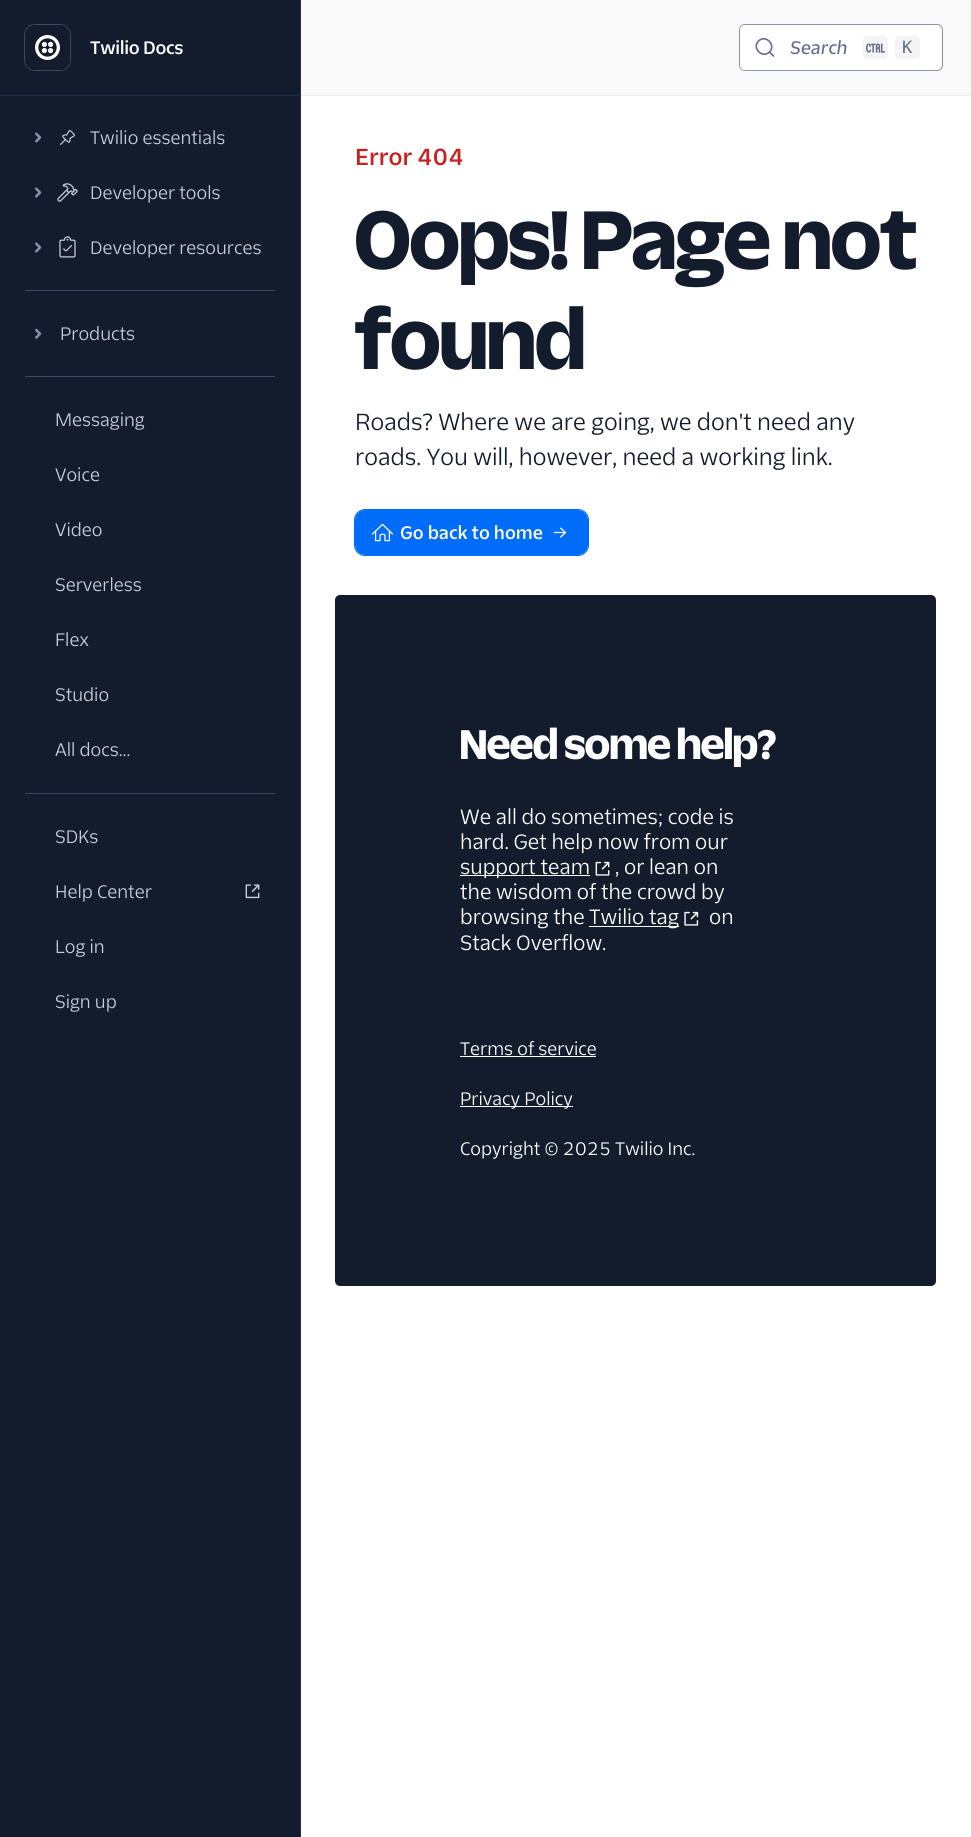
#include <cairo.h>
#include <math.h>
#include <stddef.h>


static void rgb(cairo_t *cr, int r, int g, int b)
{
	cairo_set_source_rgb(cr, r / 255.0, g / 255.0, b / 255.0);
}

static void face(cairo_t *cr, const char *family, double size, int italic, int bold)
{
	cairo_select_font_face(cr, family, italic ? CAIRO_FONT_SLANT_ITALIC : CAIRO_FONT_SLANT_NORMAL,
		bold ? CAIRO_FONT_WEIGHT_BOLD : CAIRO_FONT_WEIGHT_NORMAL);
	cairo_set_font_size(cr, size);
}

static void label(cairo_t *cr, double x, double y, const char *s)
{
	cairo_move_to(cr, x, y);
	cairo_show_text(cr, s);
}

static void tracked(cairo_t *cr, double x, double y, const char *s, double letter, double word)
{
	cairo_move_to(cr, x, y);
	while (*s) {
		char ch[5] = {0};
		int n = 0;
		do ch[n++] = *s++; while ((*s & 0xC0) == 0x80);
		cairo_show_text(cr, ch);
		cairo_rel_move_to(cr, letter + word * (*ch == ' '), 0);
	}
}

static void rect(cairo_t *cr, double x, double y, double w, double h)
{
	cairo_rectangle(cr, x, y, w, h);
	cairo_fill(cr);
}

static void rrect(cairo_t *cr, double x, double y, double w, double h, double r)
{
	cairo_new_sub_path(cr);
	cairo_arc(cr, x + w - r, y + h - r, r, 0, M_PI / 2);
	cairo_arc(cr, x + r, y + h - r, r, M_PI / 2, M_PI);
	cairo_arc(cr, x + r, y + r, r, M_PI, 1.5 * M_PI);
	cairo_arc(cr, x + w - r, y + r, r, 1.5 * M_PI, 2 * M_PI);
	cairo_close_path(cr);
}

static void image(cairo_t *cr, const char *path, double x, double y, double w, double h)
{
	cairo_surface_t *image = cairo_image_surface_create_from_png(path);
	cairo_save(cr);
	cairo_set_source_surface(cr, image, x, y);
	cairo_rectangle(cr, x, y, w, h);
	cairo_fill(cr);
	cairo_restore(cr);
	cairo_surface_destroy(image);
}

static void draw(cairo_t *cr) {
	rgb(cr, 255, 255, 255);
	cairo_paint(cr);
	rgb(cr, 237, 238, 242);
	rect(cr, 300, 95, 671, 1);
	rgb(cr, 31, 48, 76);
	cairo_new_path(cr);
	cairo_move_to(cr, 1, 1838);
	cairo_line_to(cr, 301, 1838);
	cairo_line_to(cr, 301, 0);
	cairo_line_to(cr, 300, 0);
	cairo_line_to(cr, 300, 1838);
	cairo_close_path(cr);
	cairo_fill(cr);
	rgb(cr, 18, 28, 45);
	rect(cr, 0, 0, 300, 1837);
	rgb(cr, 31, 48, 76);
	rect(cr, 0, 95, 300, 1);
	rrect(cr, 24.5, 24.5, 46, 46, 10.5);
	rgb(cr, 57, 71, 98);
	cairo_set_line_width(cr, 1);
	cairo_stroke(cr);
	rgb(cr, 18, 28, 45);
	rrect(cr, 25, 25, 45, 45, 10);
	cairo_fill(cr);
	image(cr, "image0.png", 35, 35, 25, 25);
	face(cr, "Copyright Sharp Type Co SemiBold", 17.5, 0, 0);
	rgb(cr, 255, 255, 255);
	tracked(cr, 90, 54, "Twilio Docs", -0.3, 0);
	image(cr, "image1.png", 35, 132, 7, 11);
	image(cr, "image2.png", 60, 130, 15, 15);
	face(cr, "Copyright Sharp Type Co", 17.5, 0, 0);
	rgb(cr, 202, 205, 216);
	label(cr, 90, 144, "Twilio essentials");
	image(cr, "image1.png", 35, 187, 7, 11);
	image(cr, "image3.png", 57, 183, 21, 19);
	label(cr, 90, 199, "Developer tools");
	image(cr, "image1.png", 35, 242, 7, 11);
	image(cr, "image4.png", 59, 236, 17, 22);
	label(cr, 90, 254, "Developer resources");
	rgb(cr, 57, 71, 98);
	rect(cr, 25, 290, 250, 1);
	image(cr, "image5.png", 35, 328, 7, 11);
	rgb(cr, 202, 205, 216);
	label(cr, 60, 340, "Products");
	rgb(cr, 57, 71, 98);
	rect(cr, 25, 376, 250, 1);
	rgb(cr, 202, 205, 216);
	label(cr, 55, 426, "Messaging");
	label(cr, 55, 481, "Voice");
	label(cr, 55, 536, "Video");
	label(cr, 55, 591, "Serverless");
	label(cr, 55, 646, "Flex");
	label(cr, 55, 701, "Studio");
	label(cr, 55, 756, "All docs...");
	rgb(cr, 57, 71, 98);
	rect(cr, 25, 793, 250, 1);
	rgb(cr, 202, 205, 216);
	label(cr, 55, 843, "SDKs");
	label(cr, 55, 898, "Help Center");
	image(cr, "image6.png", 245, 884, 15, 15);
	label(cr, 55, 953, "Log in");
	label(cr, 55, 1008, "Sign up");
	rgb(cr, 249, 249, 250);
	rect(cr, 301, 0, 670, 95);
	rrect(cr, 739.5, 24.5, 203, 46, 5.5);
	rgb(cr, 139, 147, 170);
	cairo_stroke(cr);
	rgb(cr, 255, 255, 255);
	rrect(cr, 740, 25, 201, 45, 5);
	cairo_fill(cr);
	cairo_new_path(cr);
	cairo_move_to(cr, 769.5, 52);
	cairo_line_to(cr, 773.5, 56);
	cairo_line_to(cr, 769.5, 52);
	cairo_curve_to(cr, 762.5, 59, 751.5, 48, 758.5, 41);
	cairo_curve_to(cr, 765.5, 34, 776.5, 45, 769.5, 52);
	cairo_close_path(cr);
	rgb(cr, 96, 107, 133);
	cairo_set_line_width(cr, 1.6);
	cairo_set_line_cap(cr, CAIRO_LINE_CAP_ROUND);
	cairo_set_line_join(cr, CAIRO_LINE_JOIN_ROUND);
	cairo_stroke(cr);
	face(cr, "Copyright Sharp Type Co Medium", 17.5, 1, 0);
	label(cr, 790, 54, "Search");
	rgb(cr, 244, 244, 246);
	rrect(cr, 863, 36, 25, 23, 4);
	cairo_fill(cr);
	image(cr, "image7.png", 866, 43, 19, 10);
	rrect(cr, 895, 36, 25, 23, 4);
	cairo_fill(cr);
	face(cr, "DejaVu Sans Mono", 17, 0, 0);
	rgb(cr, 96, 107, 133);
	label(cr, 902, 53, "K");
	face(cr, "Copyright Sharp Type Co SemiBold", 22.5, 0, 0);
	rgb(cr, 199, 35, 35);
	label(cr, 355, 165, "Error");
	face(cr, "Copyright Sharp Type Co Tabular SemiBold", 22.5, 0, 0);
	label(cr, 417, 165, "404");
	face(cr, "Copyright Sharp Type Co ExtraBold", 80, 0, 0);
	rgb(cr, 18, 28, 45);
	label(cr, 355, 269, "Oops! Page not");
	label(cr, 355, 369, "found");
	face(cr, "Copyright Sharp Type Co", 22.5, 0, 0);
	label(cr, 355, 430, "Roads? Where we are going, we don't need any");
	label(cr, 355, 465, "roads. You will, however, need a working link.");
	rrect(cr, 354.5, 509.5, 234, 46, 10.5);
	rgb(cr, 0, 109, 250);
	cairo_set_line_width(cr, 1);
	cairo_set_line_cap(cr, CAIRO_LINE_CAP_BUTT);
	cairo_set_line_join(cr, CAIRO_LINE_JOIN_MITER);
	cairo_stroke(cr);
	rrect(cr, 355, 510, 233, 45, 10);
	cairo_fill(cr);
	image(cr, "image8.png", 371, 523, 23, 19);
	face(cr, "Copyright Sharp Type Co SemiBold", 17.5, 0, 0);
	rgb(cr, 255, 255, 255);
	label(cr, 400, 539, "Go back to home");
	image(cr, "image9.png", 553, 527, 14, 11);
	rgb(cr, 18, 28, 45);
	rrect(cr, 335, 595, 601, 691, 5);
	cairo_fill(cr);
	face(cr, "Copyright Sharp Type Co ExtraBold", 40, 0, 0);
	rgb(cr, 255, 255, 255);
	label(cr, 460, 759, "Need some help?");
	face(cr, "Copyright Sharp Type Co", 20, 0, 0);
	label(cr, 460, 824, "We all do sometimes; code is");
	label(cr, 460, 849, "hard. Get help now from our");
	rect(cr, 460, 875, 130, 1);
	label(cr, 460, 874, "support team");
	image(cr, "image10.png", 595, 861, 15, 15);
	label(cr, 615, 874, ", or lean on");
	label(cr, 460, 899, "the wisdom of the crowd by");
	label(cr, 460, 924, "browsing the");
	rect(cr, 589, 926, 90, 1);
	label(cr, 589, 924, "Twilio tag");
	image(cr, "image11.png", 684, 911, 15, 15);
	label(cr, 709, 924, "on");
	label(cr, 460, 950, "Stack Overflow.");
	face(cr, "Copyright Sharp Type Co", 17.5, 0, 0);
	label(cr, 460, 1055, "Terms of service");
	rect(cr, 460, 1056, 136, 1);
	rect(cr, 460, 1106, 113, 1);
	label(cr, 460, 1105, "Privacy Policy");
	face(cr, "Copyright Sharp Type Co Tabular", 17.5, 0, 0);
	label(cr, 460, 1155, "Copyright © 2025 Twilio Inc.");
}

int main(void) {
	cairo_surface_t *surface = cairo_image_surface_create(CAIRO_FORMAT_RGB24, 971, 1837);
	cairo_t *cr = cairo_create(surface);
	cairo_font_options_t *options = cairo_font_options_create();
	cairo_font_options_set_hint_metrics(options, CAIRO_HINT_METRICS_OFF);
	cairo_font_options_set_hint_style(options, CAIRO_HINT_STYLE_NONE);
	cairo_set_font_options(cr, options);
	cairo_set_miter_limit(cr, 4);
	draw(cr);
	cairo_surface_write_to_png(surface, "render.png");
	cairo_font_options_destroy(options);
	cairo_destroy(cr);
	cairo_surface_destroy(surface);
	return 0;
}
